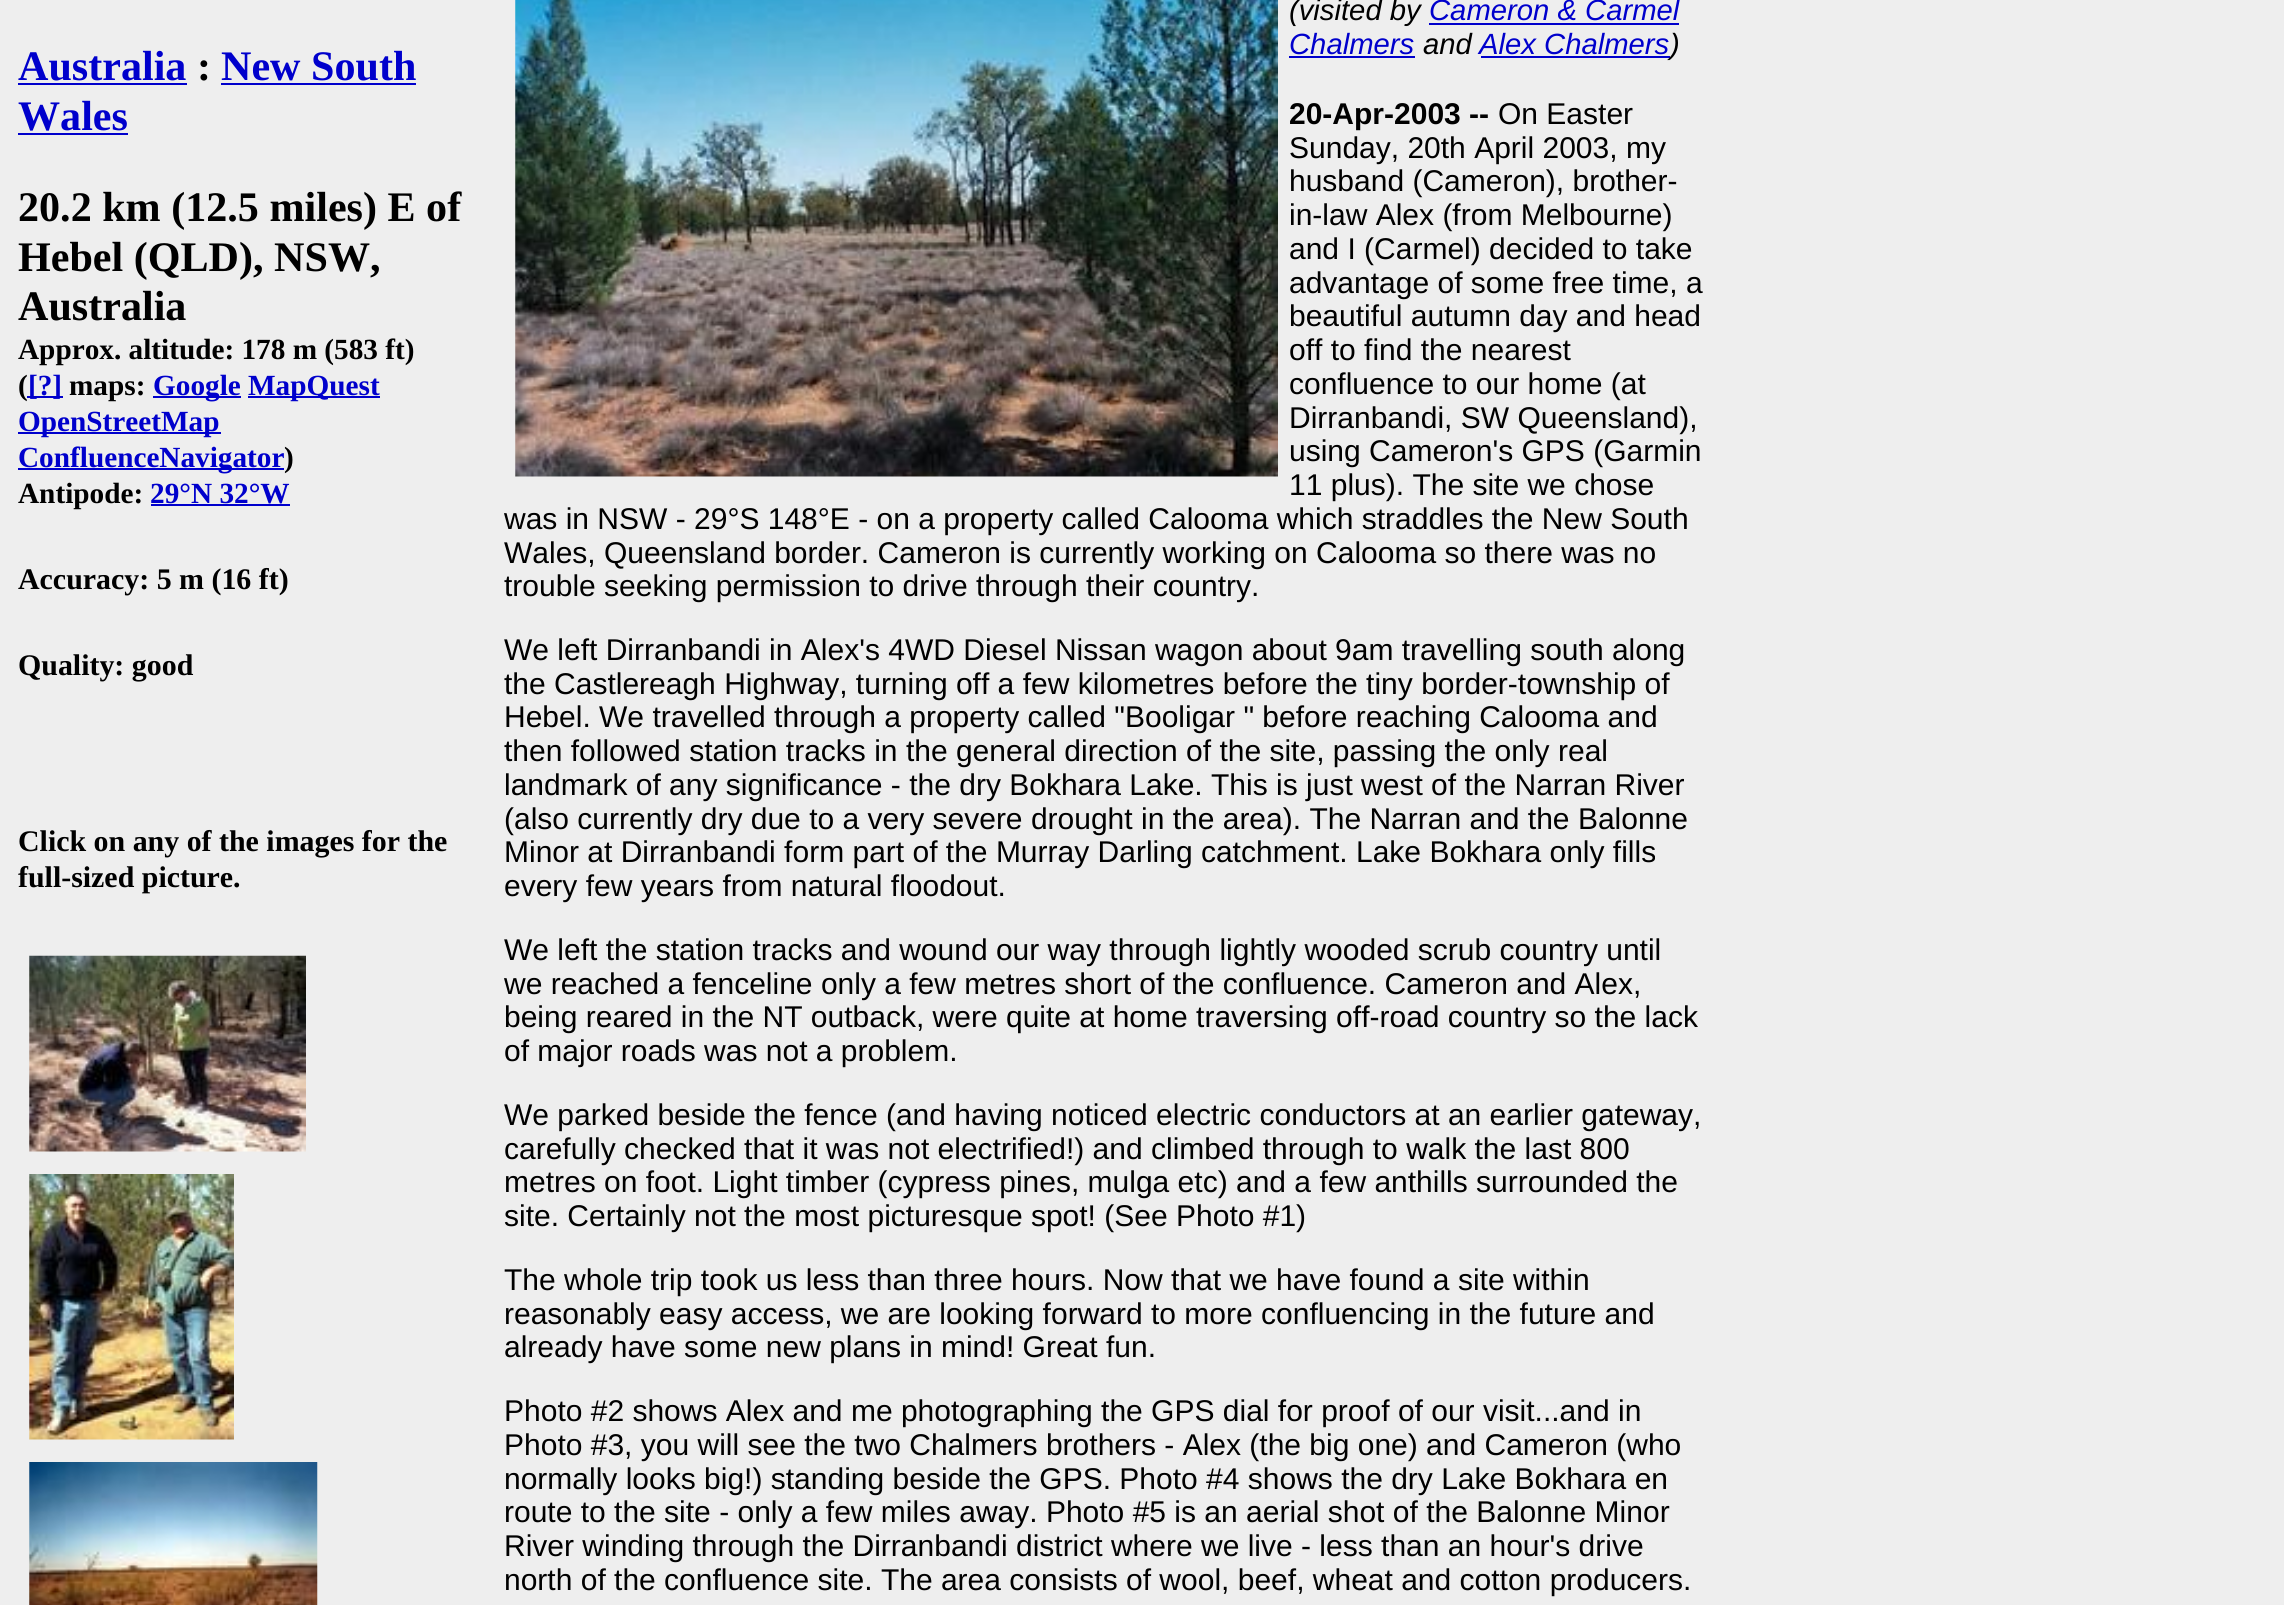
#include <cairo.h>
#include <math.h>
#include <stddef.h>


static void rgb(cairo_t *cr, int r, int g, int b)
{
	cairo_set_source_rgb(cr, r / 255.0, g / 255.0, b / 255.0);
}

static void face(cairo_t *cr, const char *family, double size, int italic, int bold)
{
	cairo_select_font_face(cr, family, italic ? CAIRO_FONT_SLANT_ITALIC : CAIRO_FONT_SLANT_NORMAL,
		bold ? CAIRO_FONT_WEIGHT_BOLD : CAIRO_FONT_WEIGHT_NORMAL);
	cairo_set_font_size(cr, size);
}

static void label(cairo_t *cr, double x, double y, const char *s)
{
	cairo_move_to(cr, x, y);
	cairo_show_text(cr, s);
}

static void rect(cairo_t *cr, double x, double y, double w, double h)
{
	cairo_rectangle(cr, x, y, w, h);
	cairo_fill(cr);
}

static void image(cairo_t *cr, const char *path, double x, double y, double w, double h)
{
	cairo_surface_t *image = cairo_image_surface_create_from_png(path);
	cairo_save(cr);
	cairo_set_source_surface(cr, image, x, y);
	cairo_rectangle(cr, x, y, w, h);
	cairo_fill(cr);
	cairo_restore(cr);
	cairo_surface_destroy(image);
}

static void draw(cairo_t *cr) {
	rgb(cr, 238, 238, 238);
	cairo_paint(cr);
	face(cr, "Liberation Serif", 42.1, 0, 1);
	rgb(cr, 0, 0, 204);
	label(cr, 18, 80, "Australia");
	rect(cr, 18, 83, 169, 2);
	rgb(cr, 0, 0, 0);
	label(cr, 197, 80, ":");
	rgb(cr, 0, 0, 204);
	label(cr, 221, 80, "New South");
	rect(cr, 221, 83, 195, 2);
	label(cr, 18, 130, "Wales");
	rect(cr, 18, 133, 110, 2);
	rgb(cr, 0, 0, 0);
	label(cr, 18, 221, "20.2 km (12.5 miles) E of");
	label(cr, 18, 271, "Hebel (QLD), NSW,");
	label(cr, 18, 320, "Australia");
	face(cr, "Liberation Serif", 29.25, 0, 1);
	label(cr, 18, 359, "Approx. altitude: 178 m (583 ft)");
	label(cr, 18, 395, "(");
	rgb(cr, 0, 0, 204);
	rect(cr, 27, 396, 36, 2);
	label(cr, 28, 395, "[?]");
	rgb(cr, 0, 0, 0);
	label(cr, 69, 395, "maps:");
	rgb(cr, 0, 0, 204);
	rect(cr, 153, 396, 88, 2);
	label(cr, 153, 395, "Google");
	rect(cr, 248, 396, 132, 2);
	label(cr, 248, 395, "MapQuest");
	rect(cr, 18, 432, 203, 2);
	label(cr, 18, 431, "OpenStreetMap");
	rect(cr, 18, 468, 266, 2);
	label(cr, 18, 467, "ConfluenceNavigator");
	rgb(cr, 0, 0, 0);
	label(cr, 284, 467, ")");
	label(cr, 18, 503, "Antipode:");
	rgb(cr, 0, 0, 204);
	label(cr, 150, 503, "29°N 32°W");
	rect(cr, 151, 504, 139, 2);
	face(cr, "Liberation Serif", 29.9, 0, 1);
	rgb(cr, 0, 0, 0);
	label(cr, 18, 589, "Accuracy: 5 m (16 ft)");
	label(cr, 18, 675, "Quality: good");
	label(cr, 18, 851, "Click on any of the images for the");
	label(cr, 18, 887, "full-sized picture.");
	image(cr, "image0.png", 29, 955, 277, 197);
	image(cr, "image1.png", 29, 1174, 205, 266);
	image(cr, "image2.png", 29, 1462, 289, 143);
	image(cr, "image3.png", 515, 0, 763, 477);
	face(cr, "Liberation Sans", 29.25, 1, 0);
	label(cr, 1289, 20, "(visited by");
	rgb(cr, 0, 0, 204);
	rect(cr, 1429, 23, 250, 2);
	label(cr, 1429, 20, "Cameron & Carmel");
	label(cr, 1289, 54, "Chalmers");
	rect(cr, 1289, 56, 126, 2);
	rgb(cr, 0, 0, 0);
	label(cr, 1423, 54, "and");
	rgb(cr, 0, 0, 204);
	label(cr, 1479, 54, "Alex Chalmers");
	rect(cr, 1481, 56, 189, 2);
	rgb(cr, 0, 0, 0);
	label(cr, 1670, 54, ")");
	face(cr, "Liberation Sans", 30, 0, 1);
	label(cr, 1289, 124, "20-Apr-2003 --");
	face(cr, "Liberation Sans", 30, 0, 0);
	label(cr, 1498, 124, "On Easter");
	label(cr, 1289, 158, "Sunday, 20th April 2003, my");
	label(cr, 1289, 191, "husband (Cameron), brother-");
	label(cr, 1289, 225, "in-law Alex (from Melbourne)");
	label(cr, 1289, 259, "and I (Carmel) decided to take");
	label(cr, 1289, 293, "advantage of some free time, a");
	label(cr, 1289, 326, "beautiful autumn day and head");
	label(cr, 1289, 360, "off to find the nearest");
	label(cr, 1289, 394, "confluence to our home (at");
	label(cr, 1289, 428, "Dirranbandi, SW Queensland),");
	label(cr, 1289, 461, "using Cameron's GPS (Garmin");
	label(cr, 1289, 495, "11 plus). The site we chose");
	label(cr, 504, 529, "was in NSW - 29°S 148°E - on a property called Calooma which straddles the New South");
	label(cr, 504, 563, "Wales, Queensland border. Cameron is currently working on Calooma so there was no");
	label(cr, 504, 596, "trouble seeking permission to drive through their country.");
	label(cr, 504, 660, "We left Dirranbandi in Alex's 4WD Diesel Nissan wagon about 9am travelling south along");
	label(cr, 504, 694, "the Castlereagh Highway, turning off a few kilometres before the tiny border-township of");
	label(cr, 504, 727, "Hebel. We travelled through a property called \"Booligar \" before reaching Calooma and");
	label(cr, 504, 761, "then followed station tracks in the general direction of the site, passing the only real");
	label(cr, 504, 795, "landmark of any significance - the dry Bokhara Lake. This is just west of the Narran River");
	label(cr, 504, 829, "(also currently dry due to a very severe drought in the area). The Narran and the Balonne");
	label(cr, 504, 862, "Minor at Dirranbandi form part of the Murray Darling catchment. Lake Bokhara only fills");
	label(cr, 504, 896, "every few years from natural floodout.");
	label(cr, 504, 960, "We left the station tracks and wound our way through lightly wooded scrub country until");
	label(cr, 504, 994, "we reached a fenceline only a few metres short of the confluence. Cameron and Alex,");
	label(cr, 504, 1027, "being reared in the NT outback, were quite at home traversing off-road country so the lack");
	label(cr, 504, 1061, "of major roads was not a problem.");
	label(cr, 504, 1125, "We parked beside the fence (and having noticed electric conductors at an earlier gateway,");
	label(cr, 504, 1159, "carefully checked that it was not electrified!) and climbed through to walk the last 800");
	label(cr, 504, 1192, "metres on foot. Light timber (cypress pines, mulga etc) and a few anthills surrounded the");
	label(cr, 504, 1226, "site. Certainly not the most picturesque spot! (See Photo #1)");
	label(cr, 504, 1290, "The whole trip took us less than three hours. Now that we have found a site within");
	label(cr, 504, 1324, "reasonably easy access, we are looking forward to more confluencing in the future and");
	label(cr, 504, 1357, "already have some new plans in mind! Great fun.");
	label(cr, 504, 1421, "Photo #2 shows Alex and me photographing the GPS dial for proof of our visit...and in");
	label(cr, 504, 1455, "Photo #3, you will see the two Chalmers brothers - Alex (the big one) and Cameron (who");
	label(cr, 504, 1489, "normally looks big!) standing beside the GPS. Photo #4 shows the dry Lake Bokhara en");
	label(cr, 504, 1522, "route to the site - only a few miles away. Photo #5 is an aerial shot of the Balonne Minor");
	label(cr, 504, 1556, "River winding through the Dirranbandi district where we live - less than an hour's drive");
	label(cr, 504, 1590, "north of the confluence site. The area consists of wool, beef, wheat and cotton producers.");
}

int main(void) {
	cairo_surface_t *surface = cairo_image_surface_create(CAIRO_FORMAT_RGB24, 2284, 1605);
	cairo_t *cr = cairo_create(surface);
	cairo_font_options_t *options = cairo_font_options_create();
	cairo_font_options_set_hint_metrics(options, CAIRO_HINT_METRICS_OFF);
	cairo_font_options_set_hint_style(options, CAIRO_HINT_STYLE_NONE);
	cairo_set_font_options(cr, options);
	cairo_set_miter_limit(cr, 4);
	draw(cr);
	cairo_surface_write_to_png(surface, "render.png");
	cairo_font_options_destroy(options);
	cairo_destroy(cr);
	cairo_surface_destroy(surface);
	return 0;
}
